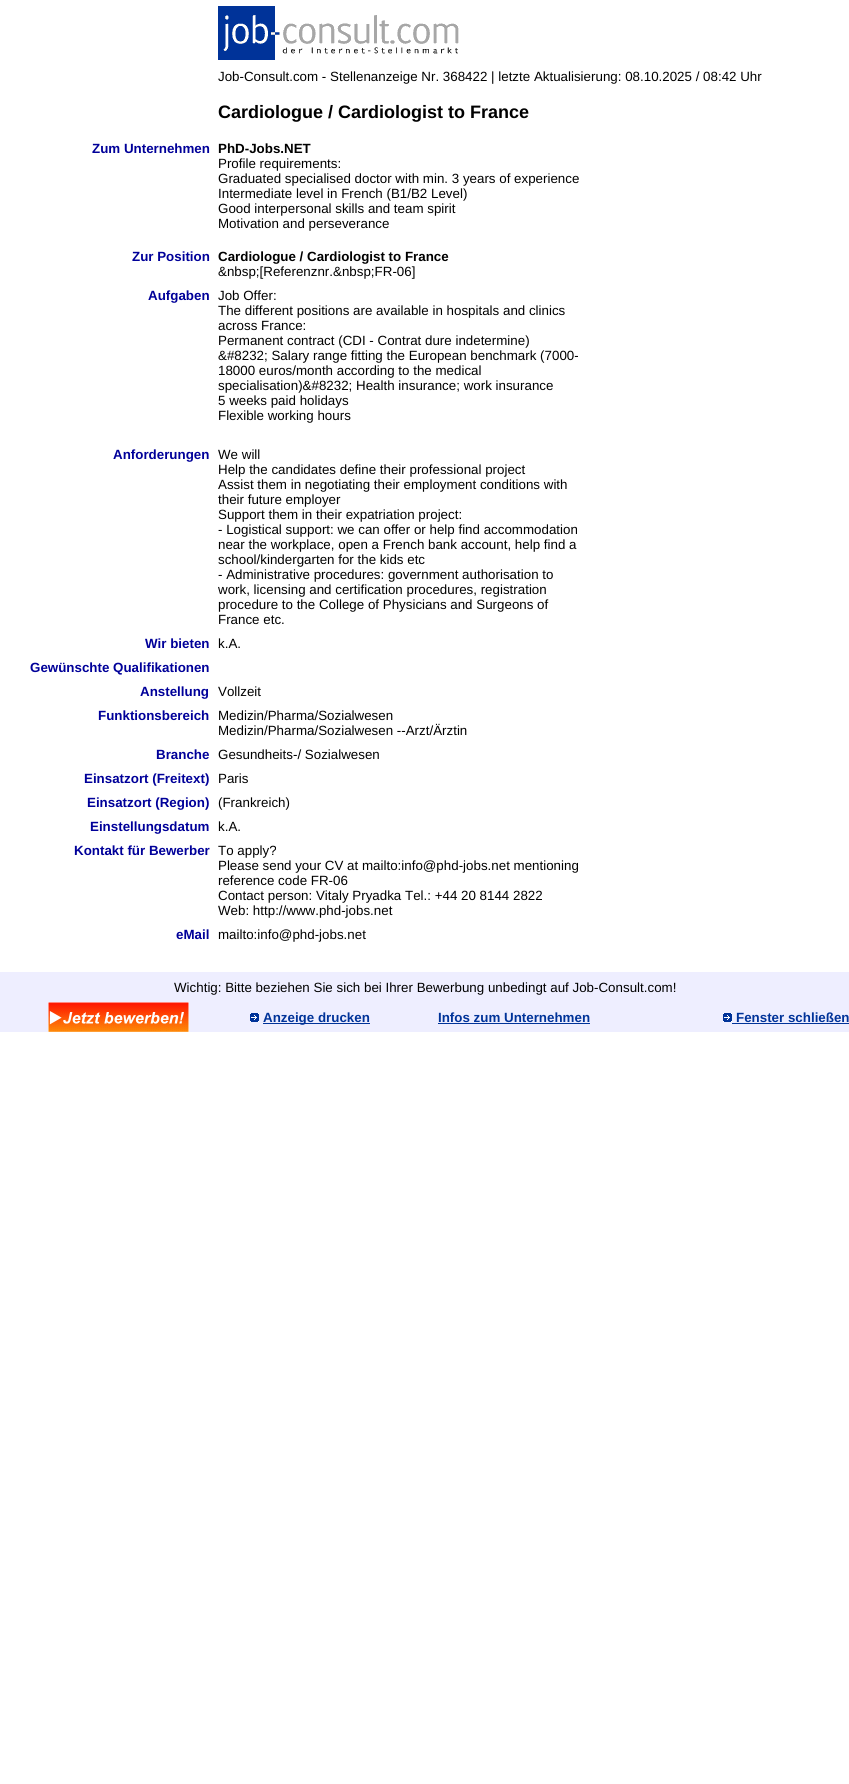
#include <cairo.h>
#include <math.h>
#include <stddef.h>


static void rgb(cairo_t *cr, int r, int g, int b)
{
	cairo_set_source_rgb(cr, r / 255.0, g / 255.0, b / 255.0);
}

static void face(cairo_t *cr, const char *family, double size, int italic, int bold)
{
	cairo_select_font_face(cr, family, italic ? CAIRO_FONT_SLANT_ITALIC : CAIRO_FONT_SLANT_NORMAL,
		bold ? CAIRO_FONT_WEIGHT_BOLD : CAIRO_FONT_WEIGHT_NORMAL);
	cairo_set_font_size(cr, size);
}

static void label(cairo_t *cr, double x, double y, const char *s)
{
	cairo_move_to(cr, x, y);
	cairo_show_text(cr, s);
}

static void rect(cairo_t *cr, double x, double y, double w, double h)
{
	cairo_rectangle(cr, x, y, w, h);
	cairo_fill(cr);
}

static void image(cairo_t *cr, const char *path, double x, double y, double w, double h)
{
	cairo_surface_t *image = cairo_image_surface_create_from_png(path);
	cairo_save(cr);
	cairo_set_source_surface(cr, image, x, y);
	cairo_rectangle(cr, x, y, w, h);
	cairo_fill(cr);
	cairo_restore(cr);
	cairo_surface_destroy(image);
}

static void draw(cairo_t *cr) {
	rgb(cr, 255, 255, 255);
	cairo_paint(cr);
	image(cr, "image0.png", 218, 6, 241, 54);
	face(cr, "Liberation Sans", 13.35, 0, 0);
	rgb(cr, 0, 0, 0);
	label(cr, 218, 81, "Job-Consult.com - Stellenanzeige Nr. 368422 | letzte Aktualisierung: 08.10.2025 / 08:42 Uhr");
	face(cr, "Liberation Sans", 18, 0, 1);
	label(cr, 218, 118, "Cardiologue / Cardiologist to France");
	face(cr, "Liberation Sans", 13.35, 0, 1);
	rgb(cr, 0, 0, 153);
	label(cr, 92, 153, "Zum Unternehmen");
	rgb(cr, 0, 0, 0);
	label(cr, 218, 153, "PhD-Jobs.NET");
	face(cr, "Liberation Sans", 13.35, 0, 0);
	label(cr, 218, 168, "Profile requirements:");
	label(cr, 218, 183, "Graduated specialised doctor with min. 3 years of experience");
	label(cr, 218, 198, "Intermediate level in French (B1/B2 Level)");
	label(cr, 218, 213, "Good interpersonal skills and team spirit");
	label(cr, 218, 228, "Motivation and perseverance");
	face(cr, "Liberation Sans", 13.35, 0, 1);
	rgb(cr, 0, 0, 153);
	label(cr, 132, 261, "Zur Position");
	rgb(cr, 0, 0, 0);
	label(cr, 218, 261, "Cardiologue / Cardiologist to France");
	face(cr, "Liberation Sans", 13.35, 0, 0);
	label(cr, 218, 276, "&nbsp;[Referenznr.&nbsp;FR-06]");
	face(cr, "Liberation Sans", 13.35, 0, 1);
	rgb(cr, 0, 0, 153);
	label(cr, 148, 300, "Aufgaben");
	face(cr, "Liberation Sans", 13.35, 0, 0);
	rgb(cr, 0, 0, 0);
	label(cr, 218, 300, "Job Offer:");
	label(cr, 218, 315, "The different positions are available in hospitals and clinics");
	label(cr, 218, 330, "across France:");
	label(cr, 218, 345, "Permanent contract (CDI - Contrat dure indetermine)");
	label(cr, 218, 360, "&#8232; Salary range fitting the European benchmark (7000-");
	label(cr, 218, 375, "18000 euros/month according to the medical");
	label(cr, 218, 390, "specialisation)&#8232; Health insurance; work insurance");
	label(cr, 218, 405, "5 weeks paid holidays");
	label(cr, 218, 420, "Flexible working hours");
	face(cr, "Liberation Sans", 13.35, 0, 1);
	rgb(cr, 0, 0, 153);
	label(cr, 113, 459, "Anforderungen");
	face(cr, "Liberation Sans", 13.35, 0, 0);
	rgb(cr, 0, 0, 0);
	label(cr, 218, 459, "We will");
	label(cr, 218, 474, "Help the candidates define their professional project");
	label(cr, 218, 489, "Assist them in negotiating their employment conditions with");
	label(cr, 218, 504, "their future employer");
	label(cr, 218, 519, "Support them in their expatriation project:");
	label(cr, 218, 534, "- Logistical support: we can offer or help find accommodation");
	label(cr, 218, 549, "near the workplace, open a French bank account, help find a");
	label(cr, 218, 564, "school/kindergarten for the kids etc");
	label(cr, 218, 579, "- Administrative procedures: government authorisation to");
	label(cr, 218, 594, "work, licensing and certification procedures, registration");
	label(cr, 218, 609, "procedure to the College of Physicians and Surgeons of");
	label(cr, 218, 624, "France etc.");
	face(cr, "Liberation Sans", 13.35, 0, 1);
	rgb(cr, 0, 0, 153);
	label(cr, 145, 648, "Wir bieten");
	face(cr, "Liberation Sans", 13.35, 0, 0);
	rgb(cr, 0, 0, 0);
	label(cr, 218, 648, "k.A.");
	face(cr, "Liberation Sans", 13.35, 0, 1);
	rgb(cr, 0, 0, 153);
	label(cr, 30, 672, "Gewünschte Qualifikationen");
	label(cr, 140, 696, "Anstellung");
	face(cr, "Liberation Sans", 13.35, 0, 0);
	rgb(cr, 0, 0, 0);
	label(cr, 218, 696, "Vollzeit");
	face(cr, "Liberation Sans", 13.35, 0, 1);
	rgb(cr, 0, 0, 153);
	label(cr, 98, 720, "Funktionsbereich");
	face(cr, "Liberation Sans", 13.35, 0, 0);
	rgb(cr, 0, 0, 0);
	label(cr, 218, 720, "Medizin/Pharma/Sozialwesen");
	label(cr, 218, 735, "Medizin/Pharma/Sozialwesen --Arzt/Ärztin");
	face(cr, "Liberation Sans", 13.35, 0, 1);
	rgb(cr, 0, 0, 153);
	label(cr, 156, 759, "Branche");
	face(cr, "Liberation Sans", 13.35, 0, 0);
	rgb(cr, 0, 0, 0);
	label(cr, 218, 759, "Gesundheits-/ Sozialwesen");
	face(cr, "Liberation Sans", 13.35, 0, 1);
	rgb(cr, 0, 0, 153);
	label(cr, 84, 783, "Einsatzort (Freitext)");
	face(cr, "Liberation Sans", 13.35, 0, 0);
	rgb(cr, 0, 0, 0);
	label(cr, 218, 783, "Paris");
	face(cr, "Liberation Sans", 13.35, 0, 1);
	rgb(cr, 0, 0, 153);
	label(cr, 87, 807, "Einsatzort (Region)");
	face(cr, "Liberation Sans", 13.35, 0, 0);
	rgb(cr, 0, 0, 0);
	label(cr, 218, 807, "(Frankreich)");
	face(cr, "Liberation Sans", 13.35, 0, 1);
	rgb(cr, 0, 0, 153);
	label(cr, 90, 831, "Einstellungsdatum");
	face(cr, "Liberation Sans", 13.35, 0, 0);
	rgb(cr, 0, 0, 0);
	label(cr, 218, 831, "k.A.");
	face(cr, "Liberation Sans", 13.35, 0, 1);
	rgb(cr, 0, 0, 153);
	label(cr, 74, 855, "Kontakt für Bewerber");
	face(cr, "Liberation Sans", 13.35, 0, 0);
	rgb(cr, 0, 0, 0);
	label(cr, 218, 855, "To apply?");
	label(cr, 218, 870, "Please send your CV at mailto:info@phd-jobs.net mentioning");
	label(cr, 218, 885, "reference code FR-06");
	label(cr, 218, 900, "Contact person: Vitaly Pryadka Tel.: +44 20 8144 2822");
	label(cr, 218, 915, "Web: http://www.phd-jobs.net");
	face(cr, "Liberation Sans", 13.35, 0, 1);
	rgb(cr, 0, 0, 153);
	label(cr, 176, 939, "eMail");
	face(cr, "Liberation Sans", 13.35, 0, 0);
	rgb(cr, 0, 0, 0);
	label(cr, 218, 939, "mailto:info@phd-jobs.net");
	rgb(cr, 238, 238, 255);
	rect(cr, 0, 972, 849, 60);
	rgb(cr, 0, 0, 0);
	label(cr, 174, 992, "Wichtig: Bitte beziehen Sie sich bei Ihrer Bewerbung unbedingt auf Job-Consult.com!");
	image(cr, "image1.png", 48, 1002, 141, 30);
	image(cr, "image2.png", 250, 1013, 9, 9);
	rgb(cr, 0, 51, 153);
	rect(cr, 263, 1023, 107, 1);
	face(cr, "Liberation Sans", 13.35, 0, 1);
	label(cr, 263, 1022, "Anzeige drucken");
	label(cr, 438, 1022, "Infos zum Unternehmen");
	rect(cr, 438, 1023, 152, 1);
	image(cr, "image2.png", 723, 1013, 9, 9);
	label(cr, 736, 1022, "Fenster schließen");
	rect(cr, 732, 1023, 117, 1);
}

int main(void) {
	cairo_surface_t *surface = cairo_image_surface_create(CAIRO_FORMAT_RGB24, 849, 1784);
	cairo_t *cr = cairo_create(surface);
	cairo_font_options_t *options = cairo_font_options_create();
	cairo_font_options_set_hint_metrics(options, CAIRO_HINT_METRICS_OFF);
	cairo_font_options_set_hint_style(options, CAIRO_HINT_STYLE_NONE);
	cairo_set_font_options(cr, options);
	cairo_set_miter_limit(cr, 4);
	draw(cr);
	cairo_surface_write_to_png(surface, "render.png");
	cairo_font_options_destroy(options);
	cairo_destroy(cr);
	cairo_surface_destroy(surface);
	return 0;
}
